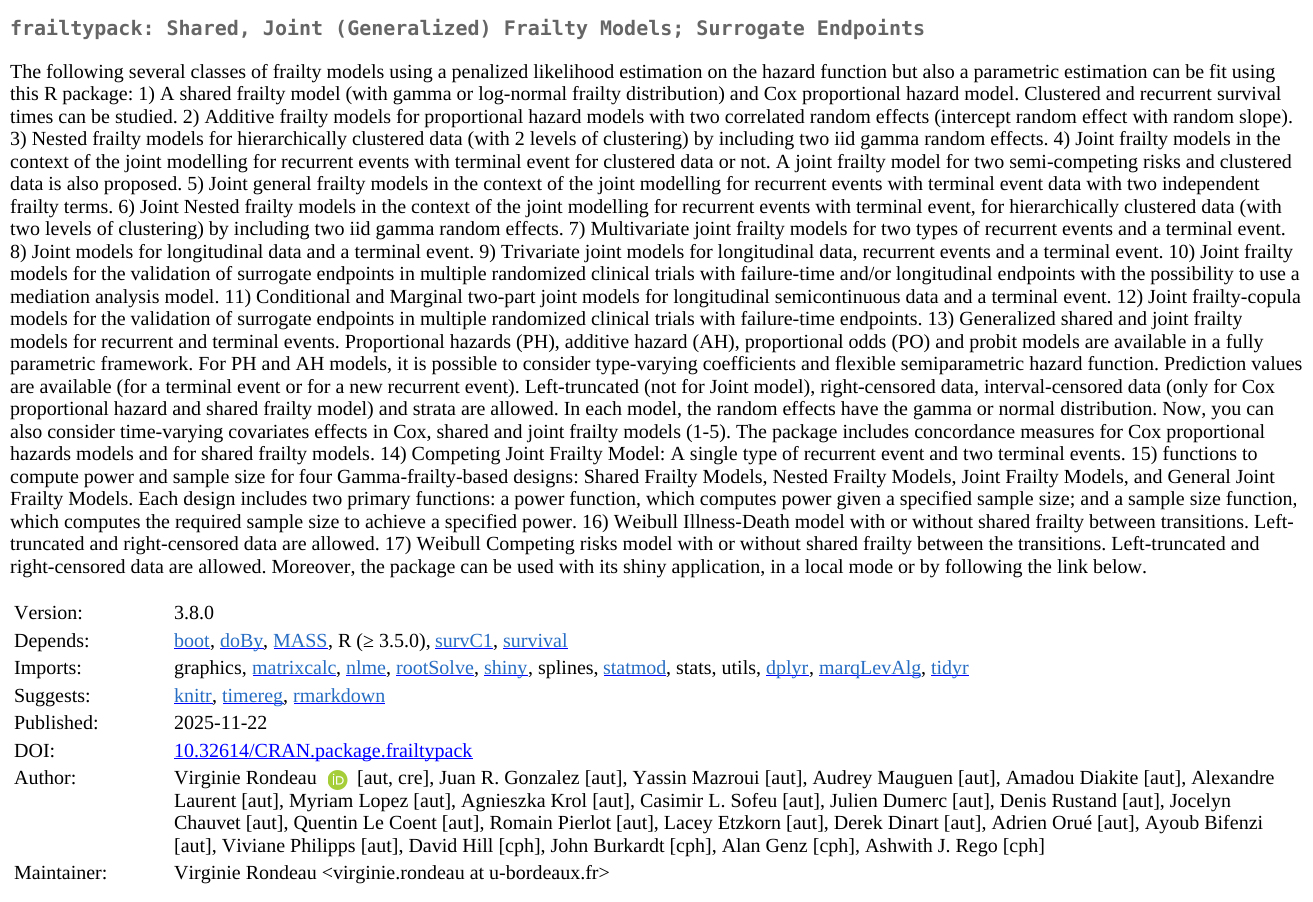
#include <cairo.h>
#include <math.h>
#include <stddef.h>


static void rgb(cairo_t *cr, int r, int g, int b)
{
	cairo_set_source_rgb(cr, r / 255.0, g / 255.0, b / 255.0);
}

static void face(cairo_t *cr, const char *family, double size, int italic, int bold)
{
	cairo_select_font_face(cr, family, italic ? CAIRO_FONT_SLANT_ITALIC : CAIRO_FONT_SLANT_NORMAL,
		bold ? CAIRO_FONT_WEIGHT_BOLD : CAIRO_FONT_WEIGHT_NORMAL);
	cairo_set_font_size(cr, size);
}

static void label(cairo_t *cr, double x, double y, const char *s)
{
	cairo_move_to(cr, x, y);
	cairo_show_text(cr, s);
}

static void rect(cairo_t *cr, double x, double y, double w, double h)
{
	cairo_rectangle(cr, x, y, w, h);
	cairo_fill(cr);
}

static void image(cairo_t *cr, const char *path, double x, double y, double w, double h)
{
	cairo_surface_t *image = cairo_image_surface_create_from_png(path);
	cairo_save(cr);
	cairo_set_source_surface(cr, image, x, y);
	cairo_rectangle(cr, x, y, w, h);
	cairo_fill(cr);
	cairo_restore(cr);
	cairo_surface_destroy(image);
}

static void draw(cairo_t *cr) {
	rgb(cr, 255, 255, 255);
	cairo_paint(cr);
	face(cr, "DejaVu Sans Mono", 20, 0, 1);
	rgb(cr, 102, 102, 102);
	label(cr, 10, 35, "frailtypack: Shared, Joint (Generalized) Frailty Models; Surrogate Endpoints");
	face(cr, "Liberation Serif", 20, 0, 0);
	rgb(cr, 0, 0, 0);
	label(cr, 10, 78, "The following several classes of frailty models using a penalized likelihood estimation on the hazard function but also a parametric estimation can be fit using");
	label(cr, 10, 100, "this R package: 1) A shared frailty model (with gamma or log-normal frailty distribution) and Cox proportional hazard model. Clustered and recurrent survival");
	label(cr, 10, 123, "times can be studied. 2) Additive frailty models for proportional hazard models with two correlated random effects (intercept random effect with random slope).");
	label(cr, 10, 145, "3) Nested frailty models for hierarchically clustered data (with 2 levels of clustering) by including two iid gamma random effects. 4) Joint frailty models in the");
	label(cr, 10, 168, "context of the joint modelling for recurrent events with terminal event for clustered data or not. A joint frailty model for two semi-competing risks and clustered");
	label(cr, 10, 190, "data is also proposed. 5) Joint general frailty models in the context of the joint modelling for recurrent events with terminal event data with two independent");
	label(cr, 10, 213, "frailty terms. 6) Joint Nested frailty models in the context of the joint modelling for recurrent events with terminal event, for hierarchically clustered data (with");
	label(cr, 10, 235, "two levels of clustering) by including two iid gamma random effects. 7) Multivariate joint frailty models for two types of recurrent events and a terminal event.");
	label(cr, 10, 258, "8) Joint models for longitudinal data and a terminal event. 9) Trivariate joint models for longitudinal data, recurrent events and a terminal event. 10) Joint frailty");
	label(cr, 10, 280, "models for the validation of surrogate endpoints in multiple randomized clinical trials with failure-time and/or longitudinal endpoints with the possibility to use a");
	label(cr, 10, 303, "mediation analysis model. 11) Conditional and Marginal two-part joint models for longitudinal semicontinuous data and a terminal event. 12) Joint frailty-copula");
	label(cr, 10, 325, "models for the validation of surrogate endpoints in multiple randomized clinical trials with failure-time endpoints. 13) Generalized shared and joint frailty");
	label(cr, 10, 348, "models for recurrent and terminal events. Proportional hazards (PH), additive hazard (AH), proportional odds (PO) and probit models are available in a fully");
	label(cr, 10, 370, "parametric framework. For PH and AH models, it is possible to consider type-varying coefficients and flexible semiparametric hazard function. Prediction values");
	label(cr, 10, 393, "are available (for a terminal event or for a new recurrent event). Left-truncated (not for Joint model), right-censored data, interval-censored data (only for Cox");
	label(cr, 10, 415, "proportional hazard and shared frailty model) and strata are allowed. In each model, the random effects have the gamma or normal distribution. Now, you can");
	label(cr, 10, 438, "also consider time-varying covariates effects in Cox, shared and joint frailty models (1-5). The package includes concordance measures for Cox proportional");
	label(cr, 10, 460, "hazards models and for shared frailty models. 14) Competing Joint Frailty Model: A single type of recurrent event and two terminal events. 15) functions to");
	label(cr, 10, 483, "compute power and sample size for four Gamma-frailty-based designs: Shared Frailty Models, Nested Frailty Models, Joint Frailty Models, and General Joint");
	label(cr, 10, 505, "Frailty Models. Each design includes two primary functions: a power function, which computes power given a specified sample size; and a sample size function,");
	label(cr, 10, 528, "which computes the required sample size to achieve a specified power. 16) Weibull Illness-Death model with or without shared frailty between transitions. Left-");
	label(cr, 10, 550, "truncated and right-censored data are allowed. 17) Weibull Competing risks model with or without shared frailty between the transitions. Left-truncated and");
	label(cr, 10, 573, "right-censored data are allowed. Moreover, the package can be used with its shiny application, in a local mode or by following the link below.");
	label(cr, 14, 619, "Version:");
	label(cr, 174, 619, "3.8.0");
	label(cr, 14, 647, "Depends:");
	rgb(cr, 39, 109, 195);
	label(cr, 174, 647, "boot");
	rgb(cr, 0, 0, 255);
	rect(cr, 174, 648, 36, 1);
	rgb(cr, 0, 0, 0);
	label(cr, 210, 647, ",");
	rgb(cr, 0, 0, 255);
	rect(cr, 220, 648, 44, 1);
	rgb(cr, 39, 109, 195);
	label(cr, 220, 647, "doBy");
	rgb(cr, 0, 0, 0);
	label(cr, 263, 647, ",");
	rgb(cr, 39, 109, 195);
	label(cr, 273, 647, "MASS");
	rgb(cr, 0, 0, 255);
	rect(cr, 274, 648, 54, 1);
	rgb(cr, 0, 0, 0);
	label(cr, 328, 647, ", R (≥ 3.5.0),");
	rgb(cr, 39, 109, 195);
	label(cr, 435, 647, "survC1");
	rgb(cr, 0, 0, 255);
	rect(cr, 435, 648, 58, 1);
	rgb(cr, 0, 0, 0);
	label(cr, 493, 647, ",");
	rgb(cr, 39, 109, 195);
	label(cr, 503, 647, "survival");
	rgb(cr, 0, 0, 255);
	rect(cr, 503, 648, 65, 1);
	rgb(cr, 0, 0, 0);
	label(cr, 14, 674, "Imports:");
	label(cr, 174, 674, "graphics,");
	rgb(cr, 39, 109, 195);
	label(cr, 252, 674, "matrixcalc");
	rgb(cr, 0, 0, 255);
	rect(cr, 253, 675, 83, 1);
	rgb(cr, 0, 0, 0);
	label(cr, 336, 674, ",");
	rgb(cr, 39, 109, 195);
	label(cr, 346, 674, "nlme");
	rgb(cr, 0, 0, 255);
	rect(cr, 346, 675, 40, 1);
	rgb(cr, 0, 0, 0);
	label(cr, 386, 674, ",");
	rgb(cr, 39, 109, 195);
	label(cr, 396, 674, "rootSolve");
	rgb(cr, 0, 0, 255);
	rect(cr, 396, 675, 78, 1);
	rgb(cr, 0, 0, 0);
	label(cr, 474, 674, ",");
	rgb(cr, 0, 0, 255);
	rect(cr, 484, 675, 44, 1);
	rgb(cr, 39, 109, 195);
	label(cr, 484, 674, "shiny");
	rgb(cr, 0, 0, 0);
	label(cr, 528, 674, ", splines,");
	rgb(cr, 39, 109, 195);
	label(cr, 603, 674, "statmod");
	rgb(cr, 0, 0, 255);
	rect(cr, 604, 675, 62, 1);
	rgb(cr, 0, 0, 0);
	label(cr, 666, 674, ", stats, utils,");
	rgb(cr, 0, 0, 255);
	rect(cr, 766, 675, 43, 1);
	rgb(cr, 39, 109, 195);
	label(cr, 766, 674, "dplyr");
	rgb(cr, 0, 0, 0);
	label(cr, 809, 674, ",");
	rgb(cr, 0, 0, 255);
	rect(cr, 819, 675, 102, 1);
	rgb(cr, 39, 109, 195);
	label(cr, 819, 674, "marqLevAlg");
	rgb(cr, 0, 0, 0);
	label(cr, 921, 674, ",");
	rgb(cr, 0, 0, 255);
	rect(cr, 931, 675, 38, 1);
	rgb(cr, 39, 109, 195);
	label(cr, 931, 674, "tidyr");
	rgb(cr, 0, 0, 0);
	label(cr, 14, 702, "Suggests:");
	rgb(cr, 39, 109, 195);
	label(cr, 174, 702, "knitr");
	rgb(cr, 0, 0, 255);
	rect(cr, 174, 703, 39, 1);
	rgb(cr, 0, 0, 0);
	label(cr, 212, 702, ",");
	rgb(cr, 0, 0, 255);
	rect(cr, 223, 703, 61, 1);
	rgb(cr, 39, 109, 195);
	label(cr, 222, 702, "timereg");
	rgb(cr, 0, 0, 0);
	label(cr, 283, 702, ",");
	rgb(cr, 39, 109, 195);
	label(cr, 293, 702, "rmarkdown");
	rgb(cr, 0, 0, 255);
	rect(cr, 294, 703, 91, 1);
	rgb(cr, 0, 0, 0);
	label(cr, 14, 729, "Published:");
	label(cr, 174, 729, "2025-11-22");
	label(cr, 14, 757, "DOI:");
	rgb(cr, 0, 0, 255);
	rect(cr, 174, 758, 299, 1);
	label(cr, 174, 757, "10.32614/CRAN.package.frailtypack");
	rgb(cr, 0, 0, 0);
	label(cr, 14, 784, "Author:");
	label(cr, 174, 784, "Virginie Rondeau");
	image(cr, "image0.png", 328, 770, 20, 20);
	label(cr, 357, 784, "[aut, cre], Juan R. Gonzalez [aut], Yassin Mazroui [aut], Audrey Mauguen [aut], Amadou Diakite [aut], Alexandre");
	label(cr, 174, 807, "Laurent [aut], Myriam Lopez [aut], Agnieszka Krol [aut], Casimir L. Sofeu [aut], Julien Dumerc [aut], Denis Rustand [aut], Jocelyn");
	label(cr, 174, 829, "Chauvet [aut], Quentin Le Coent [aut], Romain Pierlot [aut], Lacey Etzkorn [aut], Derek Dinart [aut], Adrien Orué [aut], Ayoub Bifenzi");
	label(cr, 174, 852, "[aut], Viviane Philipps [aut], David Hill [cph], John Burkardt [cph], Alan Genz [cph], Ashwith J. Rego [cph]");
	label(cr, 14, 879, "Maintainer:");
	label(cr, 174, 879, "Virginie Rondeau <virginie.rondeau at u-bordeaux.fr>");
}

int main(void) {
	cairo_surface_t *surface = cairo_image_surface_create(CAIRO_FORMAT_RGB24, 1313, 902);
	cairo_t *cr = cairo_create(surface);
	cairo_font_options_t *options = cairo_font_options_create();
	cairo_font_options_set_hint_metrics(options, CAIRO_HINT_METRICS_OFF);
	cairo_font_options_set_hint_style(options, CAIRO_HINT_STYLE_NONE);
	cairo_set_font_options(cr, options);
	cairo_set_miter_limit(cr, 4);
	draw(cr);
	cairo_surface_write_to_png(surface, "render.png");
	cairo_font_options_destroy(options);
	cairo_destroy(cr);
	cairo_surface_destroy(surface);
	return 0;
}
